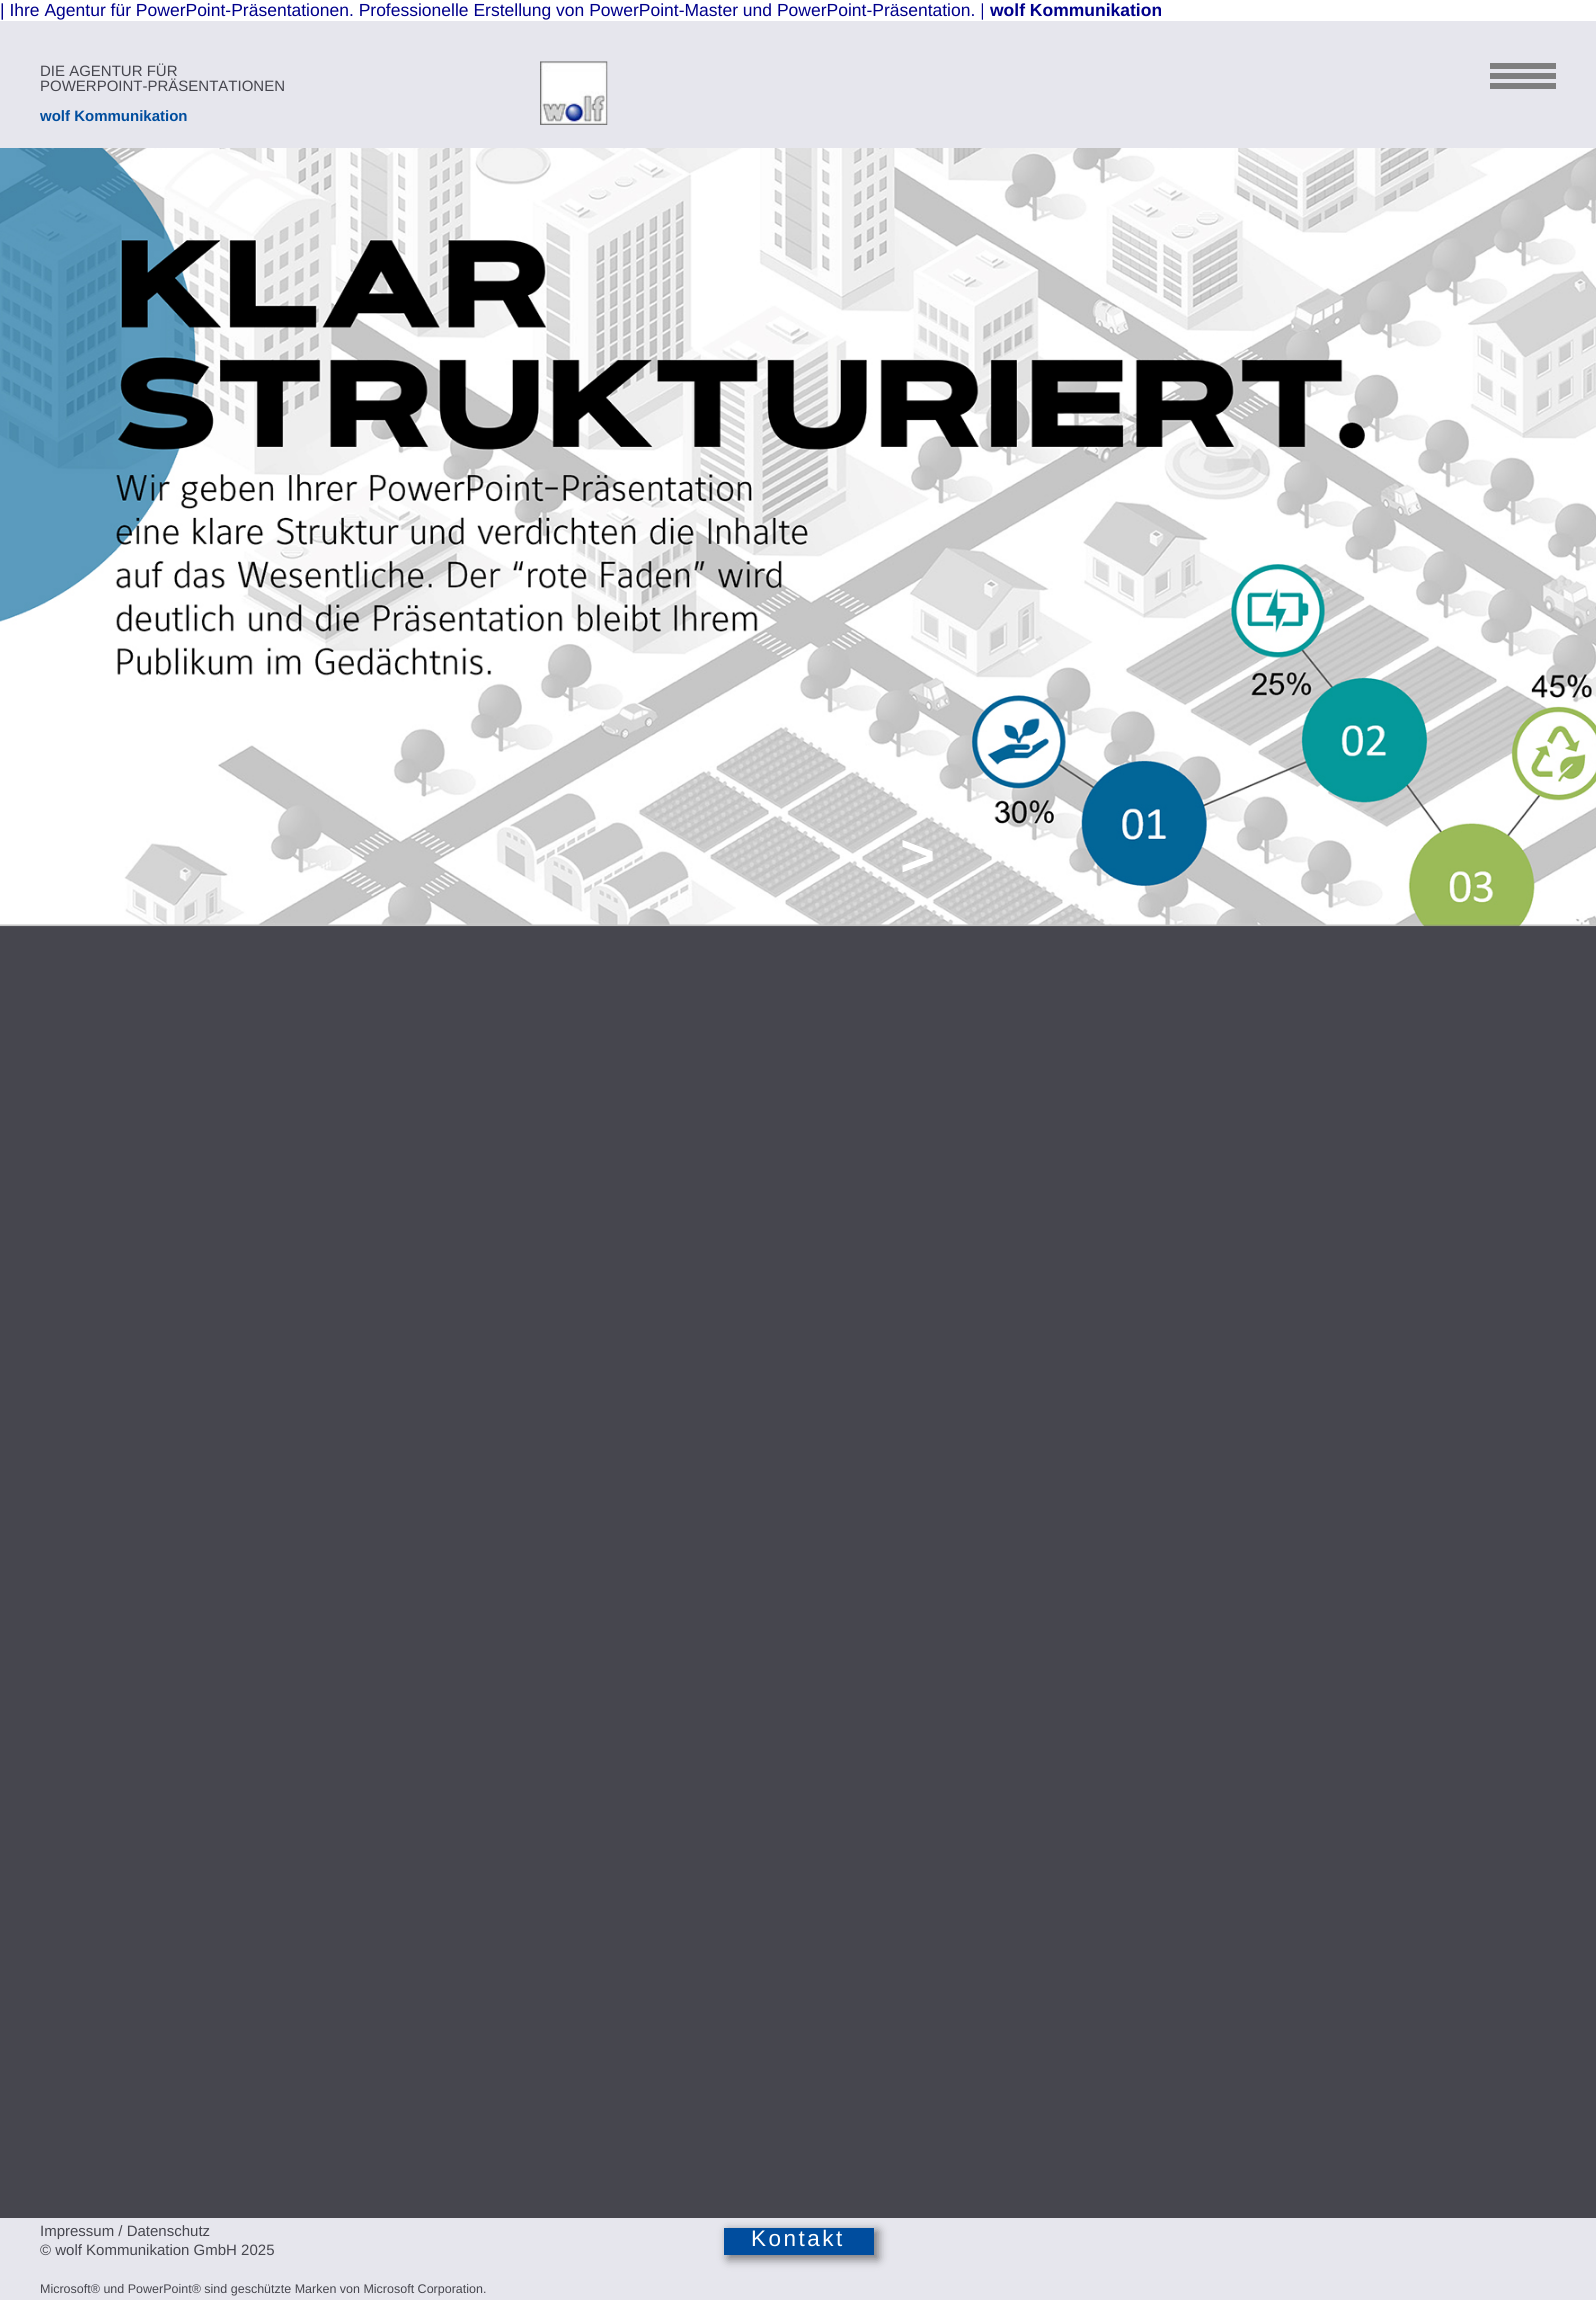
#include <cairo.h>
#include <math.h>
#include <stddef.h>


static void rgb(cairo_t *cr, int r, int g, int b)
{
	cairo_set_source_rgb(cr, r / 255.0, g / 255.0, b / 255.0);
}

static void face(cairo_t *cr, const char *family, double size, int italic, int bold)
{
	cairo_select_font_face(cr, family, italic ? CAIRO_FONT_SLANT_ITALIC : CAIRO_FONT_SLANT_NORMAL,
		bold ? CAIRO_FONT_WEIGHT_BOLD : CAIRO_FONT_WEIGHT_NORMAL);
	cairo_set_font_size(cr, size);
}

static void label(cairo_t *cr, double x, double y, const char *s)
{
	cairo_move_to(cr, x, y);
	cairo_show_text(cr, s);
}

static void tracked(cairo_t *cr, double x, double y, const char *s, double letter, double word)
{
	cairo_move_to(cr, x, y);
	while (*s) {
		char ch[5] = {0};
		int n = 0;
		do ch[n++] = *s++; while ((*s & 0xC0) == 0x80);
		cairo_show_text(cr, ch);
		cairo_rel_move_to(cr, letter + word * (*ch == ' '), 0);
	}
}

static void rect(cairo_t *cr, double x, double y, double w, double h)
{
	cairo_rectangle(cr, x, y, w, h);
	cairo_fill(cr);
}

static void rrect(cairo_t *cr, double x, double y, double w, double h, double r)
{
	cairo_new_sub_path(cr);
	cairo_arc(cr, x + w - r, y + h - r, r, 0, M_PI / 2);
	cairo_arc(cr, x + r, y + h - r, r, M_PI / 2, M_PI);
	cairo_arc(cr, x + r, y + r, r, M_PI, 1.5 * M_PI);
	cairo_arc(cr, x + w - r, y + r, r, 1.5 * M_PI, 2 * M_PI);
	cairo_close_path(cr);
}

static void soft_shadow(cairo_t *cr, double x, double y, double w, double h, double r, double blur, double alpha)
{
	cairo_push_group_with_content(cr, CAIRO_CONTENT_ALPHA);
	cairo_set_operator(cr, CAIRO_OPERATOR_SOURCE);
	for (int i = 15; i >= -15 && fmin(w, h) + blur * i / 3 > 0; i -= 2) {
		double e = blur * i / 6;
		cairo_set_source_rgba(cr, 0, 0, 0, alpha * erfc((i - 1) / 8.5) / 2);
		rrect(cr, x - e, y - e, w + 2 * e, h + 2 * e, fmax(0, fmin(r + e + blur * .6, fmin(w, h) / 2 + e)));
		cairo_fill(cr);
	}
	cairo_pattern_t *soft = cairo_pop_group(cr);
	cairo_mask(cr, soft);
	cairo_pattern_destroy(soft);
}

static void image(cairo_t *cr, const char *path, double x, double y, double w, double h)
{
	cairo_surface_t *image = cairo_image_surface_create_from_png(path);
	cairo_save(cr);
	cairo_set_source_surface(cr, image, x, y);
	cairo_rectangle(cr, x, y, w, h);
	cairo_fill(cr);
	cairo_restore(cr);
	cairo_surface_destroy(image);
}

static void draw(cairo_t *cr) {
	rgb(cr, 255, 255, 255);
	cairo_paint(cr);
	face(cr, "Liberation Sans", 17.5, 0, 0);
	rgb(cr, 0, 0, 139);
	label(cr, 0, 16, "| Ihre Agentur für PowerPoint-Präsentationen. Professionelle Erstellung von PowerPoint-Master und PowerPoint-Präsentation. |");
	face(cr, "Liberation Sans", 17.5, 0, 1);
	label(cr, 990, 16, "wolf Kommunikation");
	rgb(cr, 70, 70, 78);
	rect(cr, 0, 926, 1596, 1292);
	rgb(cr, 230, 230, 237);
	rect(cr, 0, 21, 1596, 127);
	face(cr, "Liberation Sans", 15, 0, 0);
	rgb(cr, 70, 70, 78);
	label(cr, 40, 76, "DIE AGENTUR FÜR");
	label(cr, 40, 91, "POWERPOINT-PRÄSENTATIONEN");
	face(cr, "Liberation Sans", 15, 0, 1);
	rgb(cr, 0, 77, 158);
	label(cr, 40, 121, "wolf Kommunikation");
	image(cr, "image0.png", 540, 61, 68, 64);
	image(cr, "image1.png", 0, 148, 1596, 779);
	face(cr, "Liberation Sans", 60, 0, 1);
	rgb(cr, 255, 255, 255);
	label(cr, 900, 876, ">");
	rgb(cr, 127, 127, 127);
	rect(cr, 1490, 63, 66, 6);
	rect(cr, 1490, 73, 66, 6);
	rect(cr, 1490, 83, 66, 6);
	rgb(cr, 230, 230, 237);
	rect(cr, 0, 2218, 1596, 82);
	face(cr, "Liberation Sans", 15, 0, 0);
	rgb(cr, 70, 70, 78);
	label(cr, 40, 2236, "Impressum / Datenschutz");
	label(cr, 40, 2255, "© wolf Kommunikation GmbH 2025");
	face(cr, "Liberation Sans", 12.5, 0, 0);
	label(cr, 40, 2293, "Microsoft® und PowerPoint® sind geschützte Marken von Microsoft Corporation.");
	rgb(cr, 0, 0, 0);
	soft_shadow(cr, 728, 2231, 150, 28, 0, 5, 0.5);
	rgb(cr, 0, 77, 158);
	rect(cr, 724, 2228, 150, 27);
	face(cr, "Liberation Sans", 22.5, 0, 0);
	rgb(cr, 255, 255, 255);
	tracked(cr, 751, 2246, "Kontakt", 2.5, 0);
}

int main(void) {
	cairo_surface_t *surface = cairo_image_surface_create(CAIRO_FORMAT_RGB24, 1596, 2300);
	cairo_t *cr = cairo_create(surface);
	cairo_font_options_t *options = cairo_font_options_create();
	cairo_font_options_set_hint_metrics(options, CAIRO_HINT_METRICS_OFF);
	cairo_font_options_set_hint_style(options, CAIRO_HINT_STYLE_NONE);
	cairo_set_font_options(cr, options);
	cairo_set_miter_limit(cr, 4);
	draw(cr);
	cairo_surface_write_to_png(surface, "render.png");
	cairo_font_options_destroy(options);
	cairo_destroy(cr);
	cairo_surface_destroy(surface);
	return 0;
}
